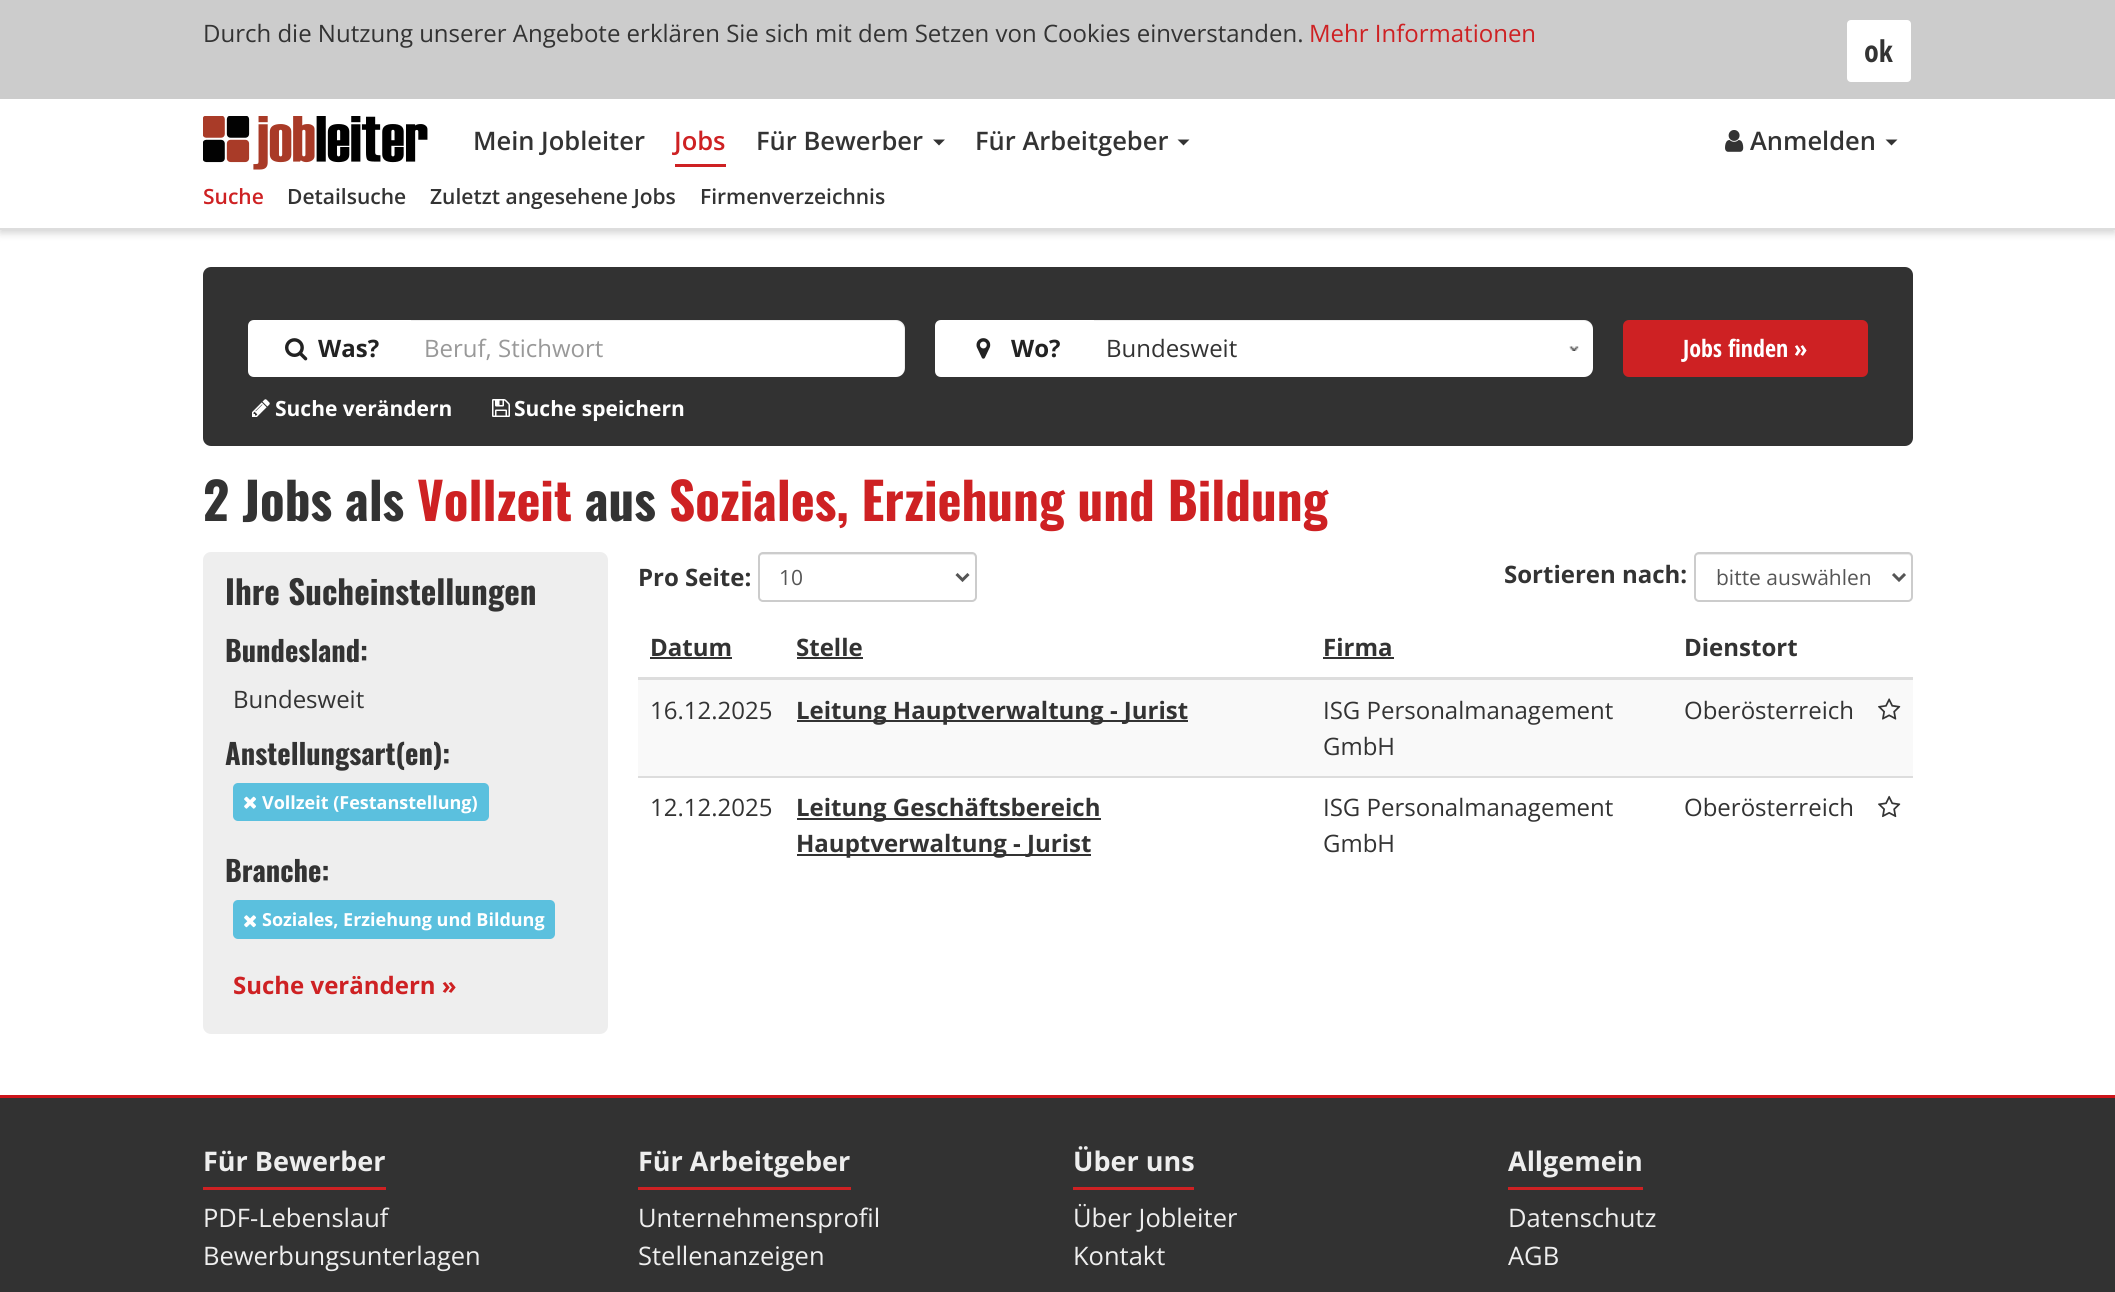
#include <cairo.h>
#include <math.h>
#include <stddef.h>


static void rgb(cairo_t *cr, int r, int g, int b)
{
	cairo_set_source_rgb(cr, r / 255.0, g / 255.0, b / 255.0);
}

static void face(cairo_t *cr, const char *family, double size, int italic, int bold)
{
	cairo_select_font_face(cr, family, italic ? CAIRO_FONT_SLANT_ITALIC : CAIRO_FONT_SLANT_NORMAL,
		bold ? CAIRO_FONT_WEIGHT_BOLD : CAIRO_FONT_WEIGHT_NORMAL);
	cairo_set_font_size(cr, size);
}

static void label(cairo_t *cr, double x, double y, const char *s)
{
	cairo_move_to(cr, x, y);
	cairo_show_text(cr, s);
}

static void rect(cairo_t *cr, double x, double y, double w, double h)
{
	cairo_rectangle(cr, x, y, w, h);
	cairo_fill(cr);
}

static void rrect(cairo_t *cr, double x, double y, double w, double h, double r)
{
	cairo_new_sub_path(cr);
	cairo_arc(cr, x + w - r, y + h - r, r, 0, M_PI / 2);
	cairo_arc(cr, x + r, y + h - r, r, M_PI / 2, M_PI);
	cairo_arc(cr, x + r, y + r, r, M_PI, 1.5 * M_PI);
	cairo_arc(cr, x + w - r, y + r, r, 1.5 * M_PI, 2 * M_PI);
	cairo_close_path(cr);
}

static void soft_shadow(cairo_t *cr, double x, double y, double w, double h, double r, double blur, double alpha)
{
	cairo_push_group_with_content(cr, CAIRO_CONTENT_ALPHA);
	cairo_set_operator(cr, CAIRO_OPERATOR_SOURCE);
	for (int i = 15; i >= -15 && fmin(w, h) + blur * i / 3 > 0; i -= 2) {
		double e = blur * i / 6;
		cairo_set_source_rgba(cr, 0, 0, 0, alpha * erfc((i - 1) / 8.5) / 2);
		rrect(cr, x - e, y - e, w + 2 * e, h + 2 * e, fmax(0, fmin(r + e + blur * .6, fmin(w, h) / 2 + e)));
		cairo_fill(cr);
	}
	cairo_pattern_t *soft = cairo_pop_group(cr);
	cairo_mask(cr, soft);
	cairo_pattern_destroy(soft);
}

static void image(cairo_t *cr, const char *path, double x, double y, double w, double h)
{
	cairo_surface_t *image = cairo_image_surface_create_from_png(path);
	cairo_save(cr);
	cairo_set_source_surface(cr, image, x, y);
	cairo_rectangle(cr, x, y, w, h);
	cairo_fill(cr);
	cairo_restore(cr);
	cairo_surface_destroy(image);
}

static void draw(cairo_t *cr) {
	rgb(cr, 255, 255, 255);
	cairo_paint(cr);
	rgb(cr, 144, 144, 144);
	soft_shadow(cr, 0, 102, 2115, 131, 0, 4, 0.4);
	rgb(cr, 204, 204, 204);
	rect(cr, 0, 0, 2115, 99);
	face(cr, "Open Sans", 24, 0, 0);
	rgb(cr, 51, 51, 51);
	label(cr, 203, 42, "Durch die Nutzung unserer Angebote erklären Sie sich mit dem Setzen von Cookies einverstanden.");
	rgb(cr, 206, 33, 35);
	label(cr, 1309, 42, "Mehr Informationen");
	rgb(cr, 255, 255, 255);
	rrect(cr, 1846, 19, 66, 64, 5);
	cairo_fill_preserve(cr);
	rgb(cr, 204, 204, 204);
	cairo_stroke(cr);
	face(cr, "Open Sans Condensed", 30, 0, 1);
	rgb(cr, 51, 51, 51);
	label(cr, 1864, 62, "ok");
	rgb(cr, 255, 255, 255);
	rect(cr, 0, 99, 2115, 129);
	rgb(cr, 221, 221, 221);
	rect(cr, 0, 228, 2115, 2);
	image(cr, "image0.png", 203, 116, 225, 54);
	face(cr, "Open Sans SemiBold", 25.5, 0, 0);
	rgb(cr, 51, 51, 51);
	label(cr, 473, 150, "Mein Jobleiter");
	rgb(cr, 206, 33, 35);
	label(cr, 674, 150, "Jobs");
	rect(cr, 675, 164, 51, 3);
	rgb(cr, 51, 51, 51);
	label(cr, 756, 150, "Für Bewerber");
	cairo_new_path(cr);
	cairo_move_to(cr, 933, 139.5);
	cairo_line_to(cr, 945, 139.5);
	cairo_line_to(cr, 939, 145.5);
	cairo_close_path(cr);
	cairo_fill(cr);
	label(cr, 975, 150, "Für Arbeitgeber");
	cairo_new_path(cr);
	cairo_move_to(cr, 1177.5, 139.5);
	cairo_line_to(cr, 1189.5, 139.5);
	cairo_line_to(cr, 1183.5, 145.5);
	cairo_close_path(cr);
	cairo_fill(cr);
	image(cr, "image1.png", 1725, 130, 19, 22);
	label(cr, 1750, 150, "Anmelden");
	cairo_new_path(cr);
	cairo_move_to(cr, 1885.5, 139.5);
	cairo_line_to(cr, 1897.5, 139.5);
	cairo_line_to(cr, 1891.5, 145.5);
	cairo_close_path(cr);
	cairo_fill(cr);
	face(cr, "Open Sans SemiBold", 21, 0, 0);
	rgb(cr, 206, 33, 35);
	label(cr, 203, 204, "Suche");
	rgb(cr, 51, 51, 51);
	label(cr, 287, 204, "Detailsuche");
	label(cr, 430, 204, "Zuletzt angesehene Jobs");
	label(cr, 700, 204, "Firmenverzeichnis");
	rgb(cr, 50, 50, 50);
	rrect(cr, 203, 267, 1710, 179, 8);
	cairo_fill(cr);
	rgb(cr, 255, 255, 255);
	cairo_new_path(cr);
	cairo_move_to(cr, 254, 320);
	cairo_line_to(cr, 411, 320);
	cairo_line_to(cr, 411, 377);
	cairo_line_to(cr, 254, 377);
	cairo_curve_to(cr, 250.5, 377, 248, 374.5, 248, 371);
	cairo_line_to(cr, 248, 326);
	cairo_curve_to(cr, 248, 322.5, 250.5, 320, 254, 320);
	cairo_close_path(cr);
	cairo_fill(cr);
	image(cr, "image2.png", 285, 338, 23, 23);
	face(cr, "Open Sans", 24, 0, 1);
	rgb(cr, 34, 34, 34);
	label(cr, 318, 357, "Was?");
	rgb(cr, 255, 255, 255);
	cairo_new_path(cr);
	cairo_move_to(cr, 411, 320);
	cairo_line_to(cr, 896, 320);
	cairo_curve_to(cr, 901, 320, 905, 324, 905, 329);
	cairo_line_to(cr, 905, 368);
	cairo_curve_to(cr, 905, 373, 901, 377, 896, 377);
	cairo_line_to(cr, 411, 377);
	cairo_close_path(cr);
	cairo_fill(cr);
	cairo_set_source_rgba(cr, 0, 0, 0, 0.07);
	cairo_new_path(cr);
	cairo_move_to(cr, 411, 321);
	cairo_line_to(cr, 896, 321);
	cairo_curve_to(cr, 900, 321, 904, 325, 904, 330);
	cairo_line_to(cr, 904, 369);
	cairo_curve_to(cr, 904, 371, 903, 373, 902, 375);
	cairo_curve_to(cr, 904, 373, 905, 371, 905, 368);
	cairo_line_to(cr, 905, 329);
	cairo_curve_to(cr, 905, 324, 901, 320, 896, 320);
	cairo_line_to(cr, 411, 320);
	cairo_close_path(cr);
	cairo_fill(cr);
	face(cr, "Open Sans", 24, 0, 0);
	rgb(cr, 153, 153, 153);
	label(cr, 424, 357, "Beruf, Stichwort");
	rgb(cr, 255, 255, 255);
	cairo_new_path(cr);
	cairo_move_to(cr, 941, 320);
	cairo_line_to(cr, 1094, 320);
	cairo_line_to(cr, 1094, 377);
	cairo_line_to(cr, 941, 377);
	cairo_curve_to(cr, 937.5, 377, 935, 374.5, 935, 371);
	cairo_line_to(cr, 935, 326);
	cairo_curve_to(cr, 935, 322.5, 937.5, 320, 941, 320);
	cairo_close_path(cr);
	cairo_fill(cr);
	image(cr, "image3.png", 976, 338, 15, 21);
	face(cr, "Open Sans", 24, 0, 1);
	rgb(cr, 34, 34, 34);
	label(cr, 1011, 357, "Wo?");
	rgb(cr, 255, 255, 255);
	cairo_new_path(cr);
	cairo_move_to(cr, 1094, 320);
	cairo_line_to(cr, 1584, 320);
	cairo_curve_to(cr, 1589, 320, 1593, 324, 1593, 329);
	cairo_line_to(cr, 1593, 368);
	cairo_curve_to(cr, 1593, 373, 1589, 377, 1584, 377);
	cairo_line_to(cr, 1094, 377);
	cairo_close_path(cr);
	cairo_fill(cr);
	image(cr, "image4.png", 1569, 346, 10, 5);
	cairo_set_source_rgba(cr, 0, 0, 0, 0.07);
	cairo_new_path(cr);
	cairo_move_to(cr, 1094, 321);
	cairo_line_to(cr, 1584, 321);
	cairo_curve_to(cr, 1589, 321, 1593, 325, 1593, 330);
	cairo_curve_to(cr, 1593, 325, 1590, 320, 1584, 320);
	cairo_line_to(cr, 1094, 320);
	cairo_close_path(cr);
	cairo_fill(cr);
	face(cr, "Open Sans", 24, 0, 0);
	rgb(cr, 51, 51, 51);
	label(cr, 1106, 357, "Bundesweit");
	rgb(cr, 206, 33, 35);
	rrect(cr, 1623, 320, 245, 57, 6);
	cairo_fill(cr);
	face(cr, "Open Sans Condensed", 24, 0, 1);
	rgb(cr, 255, 255, 255);
	label(cr, 1683, 357, "Jobs finden »");
	image(cr, "image5.png", 252, 399, 18, 18);
	face(cr, "Open Sans", 21, 0, 1);
	label(cr, 275, 416, "Suche verändern");
	image(cr, "image6.png", 492, 399, 18, 18);
	label(cr, 514, 416, "Suche speichern");
	face(cr, "Oswald", 51, 0, 1);
	rgb(cr, 51, 51, 51);
	label(cr, 203, 521, "2 Jobs als");
	rgb(cr, 206, 33, 35);
	label(cr, 417, 521, "Vollzeit");
	rgb(cr, 51, 51, 51);
	label(cr, 585, 521, "aus");
	rgb(cr, 206, 33, 35);
	label(cr, 669, 521, "Soziales, Erziehung und Bildung");
	rgb(cr, 238, 238, 238);
	rrect(cr, 203, 552, 405, 482, 8);
	cairo_fill(cr);
	face(cr, "Oswald", 33, 0, 1);
	rgb(cr, 51, 51, 51);
	label(cr, 225, 605, "Ihre Sucheinstellungen");
	face(cr, "Oswald", 28.5, 0, 1);
	label(cr, 225, 662, "Bundesland:");
	face(cr, "Open Sans", 24, 0, 0);
	label(cr, 233, 708, "Bundesweit");
	face(cr, "Oswald", 28.5, 0, 1);
	label(cr, 225, 765, "Anstellungsart(en):");
	rgb(cr, 91, 192, 222);
	rrect(cr, 233, 783, 256, 38, 5);
	cairo_fill(cr);
	image(cr, "image7.png", 244, 796, 12, 13);
	face(cr, "Open Sans", 18, 0, 1);
	rgb(cr, 255, 255, 255);
	label(cr, 262, 809, "Vollzeit (Festanstellung)");
	face(cr, "Oswald", 28.5, 0, 1);
	rgb(cr, 51, 51, 51);
	label(cr, 225, 882, "Branche:");
	rgb(cr, 91, 192, 222);
	rrect(cr, 233, 900, 322, 39, 5);
	cairo_fill(cr);
	image(cr, "image8.png", 244, 915, 12, 13);
	face(cr, "Open Sans", 18, 0, 1);
	rgb(cr, 255, 255, 255);
	label(cr, 262, 926, "Soziales, Erziehung und Bildung");
	face(cr, "Open Sans", 24, 0, 1);
	rgb(cr, 206, 33, 35);
	label(cr, 233, 994, "Suche verändern »");
	rgb(cr, 51, 51, 51);
	label(cr, 638, 586, "Pro Seite:");
	rgb(cr, 236, 236, 236);
	cairo_new_path(cr);
	cairo_move_to(cr, 762, 555);
	cairo_line_to(cr, 972, 555);
	cairo_curve_to(cr, 974, 555, 975, 556, 975, 558);
	cairo_line_to(cr, 975, 557);
	cairo_curve_to(cr, 975, 555, 974, 554, 972, 554);
	cairo_line_to(cr, 762, 554);
	cairo_curve_to(cr, 760, 554, 759, 555, 759, 557);
	cairo_line_to(cr, 759, 558);
	cairo_curve_to(cr, 759, 556, 760, 555, 762, 555);
	cairo_close_path(cr);
	cairo_fill(cr);
	rrect(cr, 759, 553, 217, 48, 4);
	rgb(cr, 204, 204, 204);
	cairo_stroke(cr);
	cairo_new_path(cr);
	cairo_move_to(cr, 956.5, 574);
	cairo_line_to(cr, 962.5, 580);
	cairo_line_to(cr, 968.5, 574);
	rgb(cr, 85, 85, 85);
	cairo_set_line_width(cr, 3);
	cairo_stroke(cr);
	face(cr, "Open Sans", 21, 0, 0);
	label(cr, 779, 585, "10");
	face(cr, "Open Sans", 24, 0, 1);
	rgb(cr, 51, 51, 51);
	label(cr, 1504, 583, "Sortieren nach:");
	rgb(cr, 236, 236, 236);
	cairo_new_path(cr);
	cairo_move_to(cr, 1698, 555);
	cairo_line_to(cr, 1908, 555);
	cairo_curve_to(cr, 1910, 555, 1911, 556, 1911, 558);
	cairo_line_to(cr, 1911, 557);
	cairo_curve_to(cr, 1911, 555, 1910, 554, 1908, 554);
	cairo_line_to(cr, 1698, 554);
	cairo_curve_to(cr, 1696, 554, 1695, 555, 1695, 557);
	cairo_line_to(cr, 1695, 558);
	cairo_curve_to(cr, 1695, 556, 1696, 555, 1698, 555);
	cairo_close_path(cr);
	cairo_fill(cr);
	rrect(cr, 1695, 553, 217, 48, 4);
	rgb(cr, 204, 204, 204);
	cairo_set_line_width(cr, 2);
	cairo_stroke(cr);
	cairo_new_path(cr);
	cairo_move_to(cr, 1893, 574);
	cairo_line_to(cr, 1899, 580);
	cairo_line_to(cr, 1905, 574);
	rgb(cr, 85, 85, 85);
	cairo_set_line_width(cr, 3);
	cairo_stroke(cr);
	face(cr, "Open Sans", 21, 0, 0);
	label(cr, 1716, 585, "bitte auswählen");
	face(cr, "Open Sans", 24, 0, 1);
	rgb(cr, 51, 51, 51);
	label(cr, 650, 656, "Datum");
	rect(cr, 650, 657, 82, 2);
	label(cr, 796, 656, "Stelle");
	rect(cr, 797, 657, 66, 2);
	label(cr, 1323, 656, "Firma");
	rect(cr, 1323, 657, 71, 2);
	label(cr, 1684, 656, "Dienstort");
	rgb(cr, 221, 221, 221);
	rect(cr, 638, 677, 1275, 3);
	rgb(cr, 249, 249, 249);
	rect(cr, 638, 680, 1275, 96);
	face(cr, "Open Sans", 24, 0, 0);
	rgb(cr, 51, 51, 51);
	label(cr, 650, 719, "16.12.2025");
	rect(cr, 797, 720, 391, 2);
	face(cr, "Open Sans", 24, 0, 1);
	label(cr, 796, 719, "Leitung Hauptverwaltung - Jurist");
	face(cr, "Open Sans", 24, 0, 0);
	label(cr, 1323, 719, "ISG Personalmanagement");
	label(cr, 1323, 755, "GmbH");
	label(cr, 1684, 719, "Oberösterreich");
	image(cr, "image9.png", 1878, 698, 23, 22);
	rgb(cr, 221, 221, 221);
	rect(cr, 638, 776, 1275, 2);
	image(cr, "image10.png", 1878, 795, 23, 23);
	rgb(cr, 51, 51, 51);
	label(cr, 650, 816, "12.12.2025");
	rect(cr, 797, 818, 304, 2);
	face(cr, "Open Sans", 24, 0, 1);
	label(cr, 796, 816, "Leitung Geschäftsbereich");
	rect(cr, 797, 854, 294, 2);
	label(cr, 796, 852, "Hauptverwaltung - Jurist");
	face(cr, "Open Sans", 24, 0, 0);
	label(cr, 1323, 816, "ISG Personalmanagement");
	label(cr, 1323, 852, "GmbH");
	label(cr, 1684, 816, "Oberösterreich");
	rgb(cr, 50, 50, 50);
	rect(cr, 0, 1098, 2115, 194);
	rgb(cr, 204, 20, 26);
	rect(cr, 0, 1095, 2115, 3);
	rgb(cr, 206, 33, 35);
	rect(cr, 203, 1187, 183, 3);
	face(cr, "Open Sans", 27, 0, 1);
	rgb(cr, 238, 238, 238);
	label(cr, 203, 1171, "Für Bewerber");
	face(cr, "Open Sans", 25.5, 0, 0);
	label(cr, 203, 1227, "PDF-Lebenslauf");
	label(cr, 203, 1265, "Bewerbungsunterlagen");
	rgb(cr, 206, 33, 35);
	rect(cr, 638, 1187, 213, 3);
	face(cr, "Open Sans", 27, 0, 1);
	rgb(cr, 238, 238, 238);
	label(cr, 638, 1171, "Für Arbeitgeber");
	face(cr, "Open Sans", 25.5, 0, 0);
	label(cr, 638, 1227, "Unternehmensprofil");
	label(cr, 638, 1265, "Stellenanzeigen");
	rgb(cr, 206, 33, 35);
	rect(cr, 1073, 1187, 121, 3);
	face(cr, "Open Sans", 27, 0, 1);
	rgb(cr, 238, 238, 238);
	label(cr, 1073, 1171, "Über uns");
	face(cr, "Open Sans", 25.5, 0, 0);
	label(cr, 1073, 1227, "Über Jobleiter");
	label(cr, 1073, 1265, "Kontakt");
	rgb(cr, 206, 33, 35);
	rect(cr, 1508, 1187, 135, 3);
	face(cr, "Open Sans", 27, 0, 1);
	rgb(cr, 238, 238, 238);
	label(cr, 1508, 1171, "Allgemein");
	face(cr, "Open Sans", 25.5, 0, 0);
	label(cr, 1508, 1227, "Datenschutz");
	label(cr, 1508, 1265, "AGB");
}

int main(void) {
	cairo_surface_t *surface = cairo_image_surface_create(CAIRO_FORMAT_RGB24, 2115, 1292);
	cairo_t *cr = cairo_create(surface);
	cairo_font_options_t *options = cairo_font_options_create();
	cairo_font_options_set_hint_metrics(options, CAIRO_HINT_METRICS_OFF);
	cairo_font_options_set_hint_style(options, CAIRO_HINT_STYLE_NONE);
	cairo_set_font_options(cr, options);
	cairo_set_miter_limit(cr, 4);
	draw(cr);
	cairo_surface_write_to_png(surface, "render.png");
	cairo_font_options_destroy(options);
	cairo_destroy(cr);
	cairo_surface_destroy(surface);
	return 0;
}
